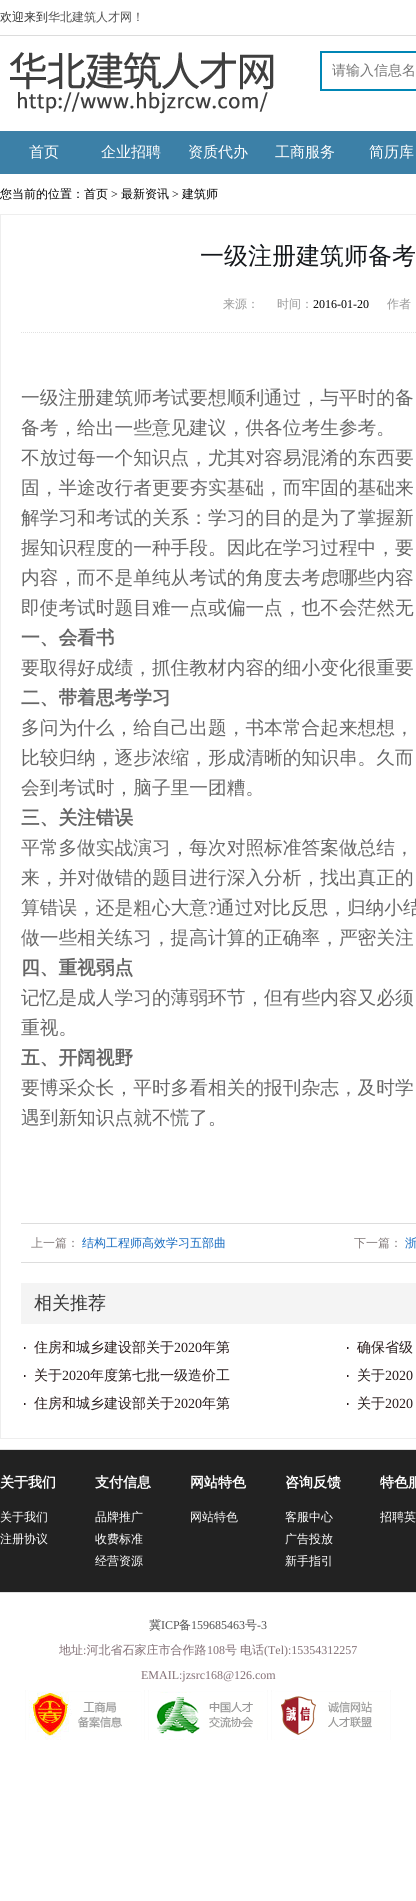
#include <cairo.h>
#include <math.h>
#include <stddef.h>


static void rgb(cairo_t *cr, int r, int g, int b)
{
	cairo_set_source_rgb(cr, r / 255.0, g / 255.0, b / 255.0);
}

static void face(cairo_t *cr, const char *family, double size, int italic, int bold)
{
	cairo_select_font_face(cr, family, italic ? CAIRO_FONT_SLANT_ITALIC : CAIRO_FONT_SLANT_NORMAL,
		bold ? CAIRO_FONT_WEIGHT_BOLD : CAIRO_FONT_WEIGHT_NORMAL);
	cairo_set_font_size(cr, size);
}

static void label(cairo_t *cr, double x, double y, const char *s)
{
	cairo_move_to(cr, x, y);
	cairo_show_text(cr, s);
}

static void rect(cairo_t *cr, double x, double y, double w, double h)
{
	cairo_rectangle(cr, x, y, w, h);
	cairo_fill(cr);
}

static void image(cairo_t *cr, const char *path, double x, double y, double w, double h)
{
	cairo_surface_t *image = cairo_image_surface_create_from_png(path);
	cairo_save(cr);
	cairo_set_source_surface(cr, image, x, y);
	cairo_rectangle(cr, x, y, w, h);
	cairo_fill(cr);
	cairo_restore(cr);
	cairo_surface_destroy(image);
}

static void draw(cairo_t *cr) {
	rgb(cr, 255, 255, 255);
	cairo_paint(cr);
	rgb(cr, 220, 220, 220);
	rect(cr, 0, 35, 416, 1);
	face(cr, "WenQuanYi Zen Hei Medium", 12, 0, 0);
	rgb(cr, 51, 51, 51);
	label(cr, 0, 21, "欢迎来到");
	rgb(cr, 80, 80, 80);
	label(cr, 48, 21, "华北建筑人才网！");
	image(cr, "image0.png", 10, 52, 264, 62);
	cairo_rectangle(cr, 321, 52, 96, 38);
	rgb(cr, 0, 134, 181);
	cairo_stroke(cr);
	face(cr, "WenQuanYi Zen Hei Medium", 14, 0, 0);
	rgb(cr, 117, 117, 117);
	label(cr, 332, 75, "请输入信息名");
	rgb(cr, 60, 128, 167);
	rect(cr, 0, 131, 416, 43);
	face(cr, "WenQuanYi Zen Hei Medium", 15, 0, 0);
	rgb(cr, 255, 255, 255);
	label(cr, 29, 157, "首页");
	label(cr, 101, 157, "企业招聘");
	label(cr, 188, 157, "资质代办");
	label(cr, 275, 157, "工商服务");
	label(cr, 369, 157, "简历库");
	face(cr, "WenQuanYi Zen Hei Medium", 12, 0, 0);
	rgb(cr, 0, 0, 0);
	label(cr, 0, 198, "您当前的位置：首页");
	face(cr, "Liberation Serif", 12, 0, 0);
	label(cr, 111, 198, ">");
	face(cr, "WenQuanYi Zen Hei Medium", 12, 0, 0);
	label(cr, 121, 198, "最新资讯");
	face(cr, "Liberation Serif", 12, 0, 0);
	label(cr, 172, 198, ">");
	face(cr, "WenQuanYi Zen Hei Medium", 12, 0, 0);
	label(cr, 182, 198, "建筑师");
	cairo_rectangle(cr, 0.5, 214.5, 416, 1224);
	rgb(cr, 238, 238, 238);
	cairo_set_line_width(cr, 1);
	cairo_stroke(cr);
	face(cr, "WenQuanYi Zen Hei Medium", 24, 0, 0);
	rgb(cr, 20, 23, 27);
	label(cr, 200, 264, "一级注册建筑师备考");
	cairo_new_path(cr);
	cairo_move_to(cr, 21, 332.5);
	cairo_line_to(cr, 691, 332.5);
	rgb(cr, 225, 225, 225);
	cairo_set_dash(cr, (double[]){1, 1}, 2, 0);
	cairo_stroke(cr);
	face(cr, "WenQuanYi Zen Hei Medium", 12, 0, 0);
	rgb(cr, 153, 153, 153);
	label(cr, 223, 308, "来源：");
	label(cr, 277, 308, "时间：");
	face(cr, "Liberation Serif", 12, 0, 0);
	rgb(cr, 0, 0, 0);
	label(cr, 313, 308, "2016-01-20");
	face(cr, "WenQuanYi Zen Hei Medium", 12, 0, 0);
	rgb(cr, 153, 153, 153);
	label(cr, 387, 308, "作者");
	face(cr, "WenQuanYi Zen Hei Medium", 18.7, 0, 0);
	rgb(cr, 102, 102, 102);
	label(cr, 21, 404, "一级注册建筑师考试要想顺利通过，与平时的备");
	label(cr, 21, 434, "备考，给出一些意见建议，供各位考生参考。");
	label(cr, 21, 464, "不放过每一个知识点，尤其对容易混淆的东西要");
	label(cr, 21, 494, "固，半途改行者更要夯实基础，而牢固的基础来");
	label(cr, 21, 524, "解学习和考试的关系：学习的目的是为了掌握新");
	label(cr, 21, 554, "握知识程度的一种手段。因此在学习过程中，要");
	label(cr, 21, 584, "内容，而不是单纯从考试的角度去考虑哪些内容");
	label(cr, 21, 614, "即使考试时题目难一点或偏一点，也不会茫然无");
	face(cr, "WenQuanYi Zen Hei", 18.7, 0, 1);
	label(cr, 21, 644, "一、会看书");
	face(cr, "WenQuanYi Zen Hei Medium", 18.7, 0, 0);
	label(cr, 21, 674, "要取得好成绩，抓住教材内容的细小变化很重要");
	face(cr, "WenQuanYi Zen Hei", 18.7, 0, 1);
	label(cr, 21, 704, "二、带着思考学习");
	face(cr, "WenQuanYi Zen Hei Medium", 18.7, 0, 0);
	label(cr, 21, 734, "多问为什么，给自己出题，书本常合起来想想，");
	label(cr, 21, 764, "比较归纳，逐步浓缩，形成清晰的知识串。久而");
	label(cr, 21, 794, "会到考试时，脑子里一团糟。");
	face(cr, "WenQuanYi Zen Hei", 18.7, 0, 1);
	label(cr, 21, 824, "三、关注错误");
	face(cr, "WenQuanYi Zen Hei Medium", 18.7, 0, 0);
	label(cr, 21, 854, "平常多做实战演习，每次对照标准答案做总结，");
	label(cr, 21, 884, "来，并对做错的题目进行深入分析，找出真正的");
	label(cr, 21, 914, "算错误，还是粗心大意");
	face(cr, "Liberation Serif", 18.7, 0, 0);
	label(cr, 208, 914, "?");
	face(cr, "WenQuanYi Zen Hei Medium", 18.7, 0, 0);
	label(cr, 216, 914, "通过对比反思，归纳小结");
	label(cr, 21, 944, "做一些相关练习，提高计算的正确率，严密关注");
	face(cr, "WenQuanYi Zen Hei", 18.7, 0, 1);
	label(cr, 21, 974, "四、重视弱点");
	face(cr, "WenQuanYi Zen Hei Medium", 18.7, 0, 0);
	label(cr, 21, 1004, "记忆是成人学习的薄弱环节，但有些内容又必须");
	label(cr, 21, 1034, "重视。");
	face(cr, "WenQuanYi Zen Hei", 18.7, 0, 1);
	label(cr, 21, 1064, "五、开阔视野");
	face(cr, "WenQuanYi Zen Hei Medium", 18.7, 0, 0);
	label(cr, 21, 1094, "要博采众长，平时多看相关的报刊杂志，及时学");
	label(cr, 21, 1124, "遇到新知识点就不慌了。");
	rgb(cr, 221, 221, 221);
	rect(cr, 21, 1223, 395, 1);
	rect(cr, 21, 1262, 395, 1);
	face(cr, "WenQuanYi Zen Hei Medium", 12, 0, 0);
	rgb(cr, 130, 122, 122);
	label(cr, 31, 1247, "上一篇：");
	rgb(cr, 19, 105, 192);
	label(cr, 82, 1247, "结构工程师高效学习五部曲");
	rgb(cr, 130, 122, 122);
	label(cr, 354, 1247, "下一篇：");
	rgb(cr, 19, 105, 192);
	label(cr, 405, 1247, "浙");
	rgb(cr, 244, 244, 244);
	rect(cr, 21, 1283, 395, 41);
	face(cr, "WenQuanYi Zen Hei Medium", 18, 0, 0);
	rgb(cr, 51, 51, 51);
	label(cr, 34, 1309, "相关推荐");
	image(cr, "image1.png", 24, 1347, 2, 2);
	face(cr, "WenQuanYi Zen Hei Medium", 14, 0, 0);
	rgb(cr, 41, 28, 28);
	label(cr, 34, 1352, "住房和城乡建设部关于");
	face(cr, "Liberation Serif", 14, 0, 0);
	label(cr, 174, 1352, "2020");
	face(cr, "WenQuanYi Zen Hei Medium", 14, 0, 0);
	label(cr, 202, 1352, "年第");
	image(cr, "image1.png", 347, 1347, 2, 2);
	label(cr, 357, 1352, "确保省级");
	image(cr, "image1.png", 24, 1375, 2, 2);
	label(cr, 34, 1380, "关于");
	face(cr, "Liberation Serif", 14, 0, 0);
	label(cr, 62, 1380, "2020");
	face(cr, "WenQuanYi Zen Hei Medium", 14, 0, 0);
	label(cr, 90, 1380, "年度第七批一级造价工");
	image(cr, "image1.png", 347, 1375, 2, 2);
	label(cr, 357, 1380, "关于");
	face(cr, "Liberation Serif", 14, 0, 0);
	label(cr, 385, 1380, "2020");
	image(cr, "image1.png", 24, 1403, 2, 2);
	face(cr, "WenQuanYi Zen Hei Medium", 14, 0, 0);
	label(cr, 34, 1408, "住房和城乡建设部关于");
	face(cr, "Liberation Serif", 14, 0, 0);
	label(cr, 174, 1408, "2020");
	face(cr, "WenQuanYi Zen Hei Medium", 14, 0, 0);
	label(cr, 202, 1408, "年第");
	image(cr, "image1.png", 347, 1403, 2, 2);
	label(cr, 357, 1408, "关于");
	face(cr, "Liberation Serif", 14, 0, 0);
	label(cr, 385, 1408, "2020");
	rgb(cr, 34, 34, 34);
	rect(cr, 0, 1450, 416, 142);
	rgb(cr, 224, 224, 224);
	rect(cr, 0, 1449, 416, 1);
	face(cr, "WenQuanYi Zen Hei", 14, 0, 1);
	rgb(cr, 255, 255, 255);
	label(cr, 0, 1487, "关于我们");
	face(cr, "WenQuanYi Zen Hei Medium", 12, 0, 0);
	label(cr, 0, 1521, "关于我们");
	label(cr, 0, 1543, "注册协议");
	face(cr, "WenQuanYi Zen Hei", 14, 0, 1);
	label(cr, 95, 1487, "支付信息");
	face(cr, "WenQuanYi Zen Hei Medium", 12, 0, 0);
	label(cr, 95, 1521, "品牌推广");
	label(cr, 95, 1543, "收费标准");
	label(cr, 95, 1565, "经营资源");
	face(cr, "WenQuanYi Zen Hei", 14, 0, 1);
	label(cr, 190, 1487, "网站特色");
	face(cr, "WenQuanYi Zen Hei Medium", 12, 0, 0);
	label(cr, 190, 1521, "网站特色");
	face(cr, "WenQuanYi Zen Hei", 14, 0, 1);
	label(cr, 285, 1487, "咨询反馈");
	face(cr, "WenQuanYi Zen Hei Medium", 12, 0, 0);
	label(cr, 285, 1521, "客服中心");
	label(cr, 285, 1543, "广告投放");
	label(cr, 285, 1565, "新手指引");
	face(cr, "WenQuanYi Zen Hei", 14, 0, 1);
	label(cr, 380, 1487, "特色服");
	face(cr, "WenQuanYi Zen Hei Medium", 12, 0, 0);
	label(cr, 380, 1521, "招聘英");
	rgb(cr, 224, 224, 224);
	rect(cr, 0, 1592, 416, 1);
	rgb(cr, 80, 80, 80);
	label(cr, 149, 1629, "冀");
	face(cr, "Liberation Serif", 12, 0, 0);
	label(cr, 161, 1629, "ICP");
	face(cr, "WenQuanYi Zen Hei Medium", 12, 0, 0);
	label(cr, 179, 1629, "备");
	face(cr, "Liberation Serif", 12, 0, 0);
	label(cr, 191, 1629, "159685463");
	face(cr, "WenQuanYi Zen Hei Medium", 12, 0, 0);
	label(cr, 245, 1629, "号");
	face(cr, "Liberation Serif", 12, 0, 0);
	label(cr, 257, 1629, "-3");
	face(cr, "WenQuanYi Zen Hei Medium", 12, 0, 0);
	rgb(cr, 129, 110, 116);
	label(cr, 59, 1654, "地址 河北省石家庄市合作路");
	face(cr, "Liberation Serif", 12, 0, 0);
	label(cr, 207, 1654, "108");
	face(cr, "WenQuanYi Zen Hei Medium", 12, 0, 0);
	label(cr, 225, 1654, "号");
	label(cr, 240, 1654, "电话");
	face(cr, "Liberation Serif", 12, 0, 0);
	label(cr, 264, 1654, "(Tel):15354312257");
	label(cr, 83, 1654, ":");
	label(cr, 141, 1679, "EMAIL:jzsrc168@126.com");
	image(cr, "image2.png", 25, 1690, 120, 50);
	image(cr, "image3.png", 148, 1690, 120, 50);
	image(cr, "image4.png", 271, 1690, 120, 50);
}

int main(void) {
	cairo_surface_t *surface = cairo_image_surface_create(CAIRO_FORMAT_RGB24, 416, 1901);
	cairo_t *cr = cairo_create(surface);
	cairo_font_options_t *options = cairo_font_options_create();
	cairo_font_options_set_hint_metrics(options, CAIRO_HINT_METRICS_OFF);
	cairo_font_options_set_hint_style(options, CAIRO_HINT_STYLE_NONE);
	cairo_set_font_options(cr, options);
	cairo_set_miter_limit(cr, 4);
	draw(cr);
	cairo_surface_write_to_png(surface, "render.png");
	cairo_font_options_destroy(options);
	cairo_destroy(cr);
	cairo_surface_destroy(surface);
	return 0;
}
